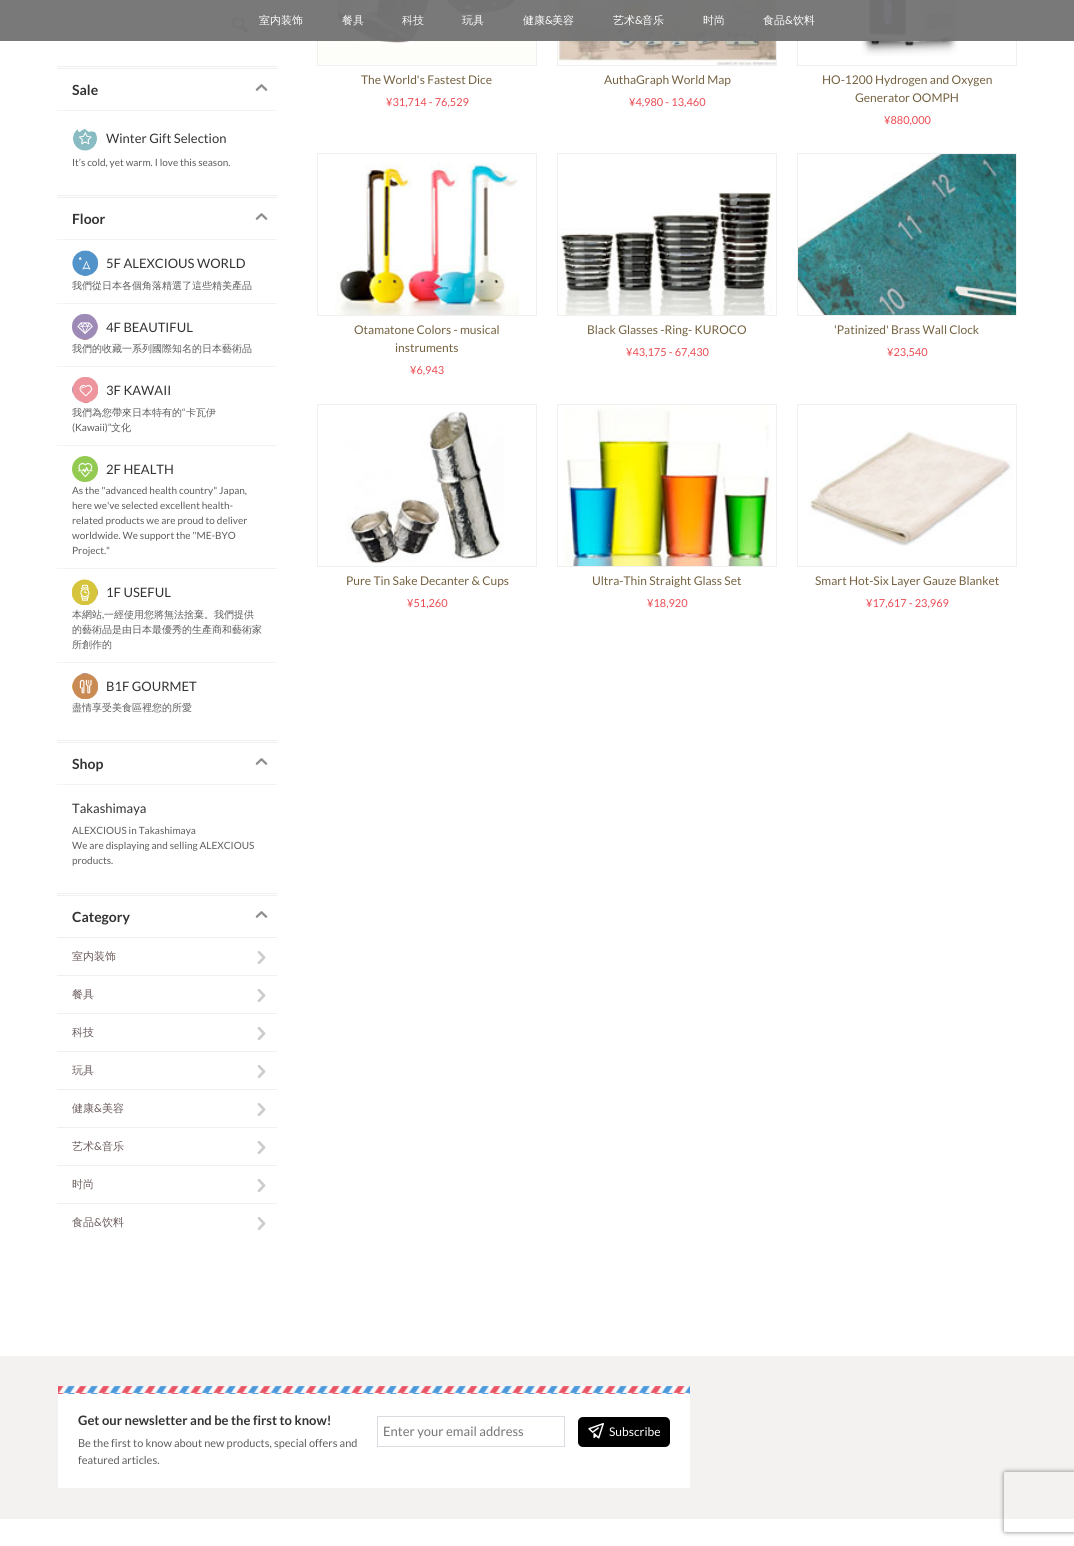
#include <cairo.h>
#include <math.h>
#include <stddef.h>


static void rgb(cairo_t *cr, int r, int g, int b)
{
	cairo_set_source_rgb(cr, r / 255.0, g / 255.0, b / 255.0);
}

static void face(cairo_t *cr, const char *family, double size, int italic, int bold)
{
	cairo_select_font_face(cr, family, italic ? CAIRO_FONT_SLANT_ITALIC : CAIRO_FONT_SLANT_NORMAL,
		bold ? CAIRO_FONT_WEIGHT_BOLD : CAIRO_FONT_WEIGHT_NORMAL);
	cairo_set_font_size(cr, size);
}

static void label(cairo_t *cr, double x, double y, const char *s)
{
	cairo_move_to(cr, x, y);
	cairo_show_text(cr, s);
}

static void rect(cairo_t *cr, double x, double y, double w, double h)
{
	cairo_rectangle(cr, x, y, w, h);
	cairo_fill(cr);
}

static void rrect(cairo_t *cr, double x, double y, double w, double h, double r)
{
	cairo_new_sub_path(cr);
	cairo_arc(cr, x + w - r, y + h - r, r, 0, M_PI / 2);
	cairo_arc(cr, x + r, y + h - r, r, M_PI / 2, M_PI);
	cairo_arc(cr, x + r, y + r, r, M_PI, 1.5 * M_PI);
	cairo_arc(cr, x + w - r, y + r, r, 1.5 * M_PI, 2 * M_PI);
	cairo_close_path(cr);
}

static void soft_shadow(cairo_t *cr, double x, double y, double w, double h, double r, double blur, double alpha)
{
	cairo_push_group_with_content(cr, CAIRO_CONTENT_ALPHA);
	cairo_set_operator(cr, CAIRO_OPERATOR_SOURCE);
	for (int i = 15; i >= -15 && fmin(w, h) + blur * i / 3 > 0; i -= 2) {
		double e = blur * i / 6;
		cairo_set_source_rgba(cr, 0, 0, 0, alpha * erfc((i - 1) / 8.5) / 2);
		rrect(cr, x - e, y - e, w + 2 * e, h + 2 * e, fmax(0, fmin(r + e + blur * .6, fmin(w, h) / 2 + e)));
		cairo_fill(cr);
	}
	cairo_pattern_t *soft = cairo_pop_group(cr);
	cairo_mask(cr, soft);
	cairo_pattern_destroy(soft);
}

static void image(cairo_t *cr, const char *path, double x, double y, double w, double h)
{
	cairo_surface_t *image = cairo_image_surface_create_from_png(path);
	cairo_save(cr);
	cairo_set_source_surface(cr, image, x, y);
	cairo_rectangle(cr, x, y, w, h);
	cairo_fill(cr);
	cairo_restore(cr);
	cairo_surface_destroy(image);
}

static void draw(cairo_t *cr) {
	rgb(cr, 255, 255, 255);
	cairo_paint(cr);
	rrect(cr, 72.5, 10.5, 189, 30, 15);
	rgb(cr, 220, 219, 225);
	cairo_set_line_width(cr, 1);
	cairo_stroke(cr);
	image(cr, "image0.png", 232, 17, 16, 16);
	cairo_rectangle(cr, 317.5, -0.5, 219, 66);
	rgb(cr, 240, 240, 240);
	cairo_stroke(cr);
	image(cr, "image10.png", 318, 0, 218, 65);
	cairo_rectangle(cr, 557.5, -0.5, 219, 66);
	cairo_stroke(cr);
	image(cr, "image11.png", 558, 0, 218, 65);
	cairo_rectangle(cr, 797.5, -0.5, 219, 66);
	cairo_stroke(cr);
	image(cr, "image12.png", 861, 0, 98, 56);
	cairo_set_source_rgba(cr, 0.455, 0.455, 0.455, 0.96);
	rect(cr, 0, 0, 1074, 41);
	face(cr, "WenQuanYi Zen Hei Medium", 11, 0, 0);
	rgb(cr, 255, 255, 255);
	label(cr, 259, 24, "室内装饰");
	rgb(cr, 249, 249, 249);
	label(cr, 342, 24, "餐具");
	label(cr, 402, 24, "科技");
	rgb(cr, 255, 255, 255);
	label(cr, 462, 24, "玩具");
	label(cr, 523, 24, "健康");
	face(cr, "Lato", 11, 0, 0);
	label(cr, 545, 24, "&");
	face(cr, "WenQuanYi Zen Hei Medium", 11, 0, 0);
	label(cr, 552, 24, "美容");
	label(cr, 613, 24, "艺术");
	face(cr, "Lato", 11, 0, 0);
	label(cr, 635, 24, "&");
	face(cr, "WenQuanYi Zen Hei Medium", 11, 0, 0);
	label(cr, 642, 24, "音乐");
	label(cr, 703, 24, "时尚");
	label(cr, 763, 24, "食品");
	face(cr, "Lato", 11, 0, 0);
	label(cr, 785, 24, "&");
	face(cr, "WenQuanYi Zen Hei Medium", 11, 0, 0);
	label(cr, 793, 24, "饮料");
	rgb(cr, 240, 240, 240);
	rect(cr, 57, 66, 220, 1);
	rect(cr, 57, 68, 220, 1);
	image(cr, "image1.png", 255, 84, 13, 7);
	face(cr, "Lato", 14, 0, 1);
	rgb(cr, 51, 51, 51);
	label(cr, 72, 95, "Sale");
	rgb(cr, 244, 243, 241);
	rect(cr, 57, 110, 220, 1);
	image(cr, "image2.png", 73, 129, 24, 22);
	face(cr, "Lato", 13, 0, 0);
	rgb(cr, 51, 51, 51);
	label(cr, 106, 143, "Winter Gift Selection");
	face(cr, "Lato", 10, 0, 0);
	rgb(cr, 92, 92, 92);
	label(cr, 72, 166, "It’s cold, yet warm. I love this season.");
	rgb(cr, 240, 240, 240);
	rect(cr, 57, 195, 220, 1);
	rect(cr, 57, 197, 220, 1);
	image(cr, "image1.png", 255, 213, 13, 7);
	face(cr, "Lato", 14, 0, 1);
	rgb(cr, 51, 51, 51);
	label(cr, 72, 224, "Floor");
	rgb(cr, 244, 243, 241);
	rect(cr, 57, 239, 220, 1);
	image(cr, "image3.png", 72, 250, 26, 26);
	face(cr, "Lato", 13, 0, 0);
	rgb(cr, 51, 51, 51);
	label(cr, 106, 268, "5F ALEXCIOUS WORLD");
	face(cr, "WenQuanYi Zen Hei Medium", 10, 0, 0);
	rgb(cr, 92, 92, 92);
	label(cr, 72, 289, "我們從日本各個角落精選了這些精美產品");
	rgb(cr, 244, 243, 241);
	rect(cr, 57, 303, 220, 1);
	image(cr, "image4.png", 72, 314, 26, 26);
	face(cr, "Lato", 13, 0, 0);
	rgb(cr, 51, 51, 51);
	label(cr, 106, 332, "4F BEAUTIFUL");
	face(cr, "WenQuanYi Zen Hei Medium", 10, 0, 0);
	rgb(cr, 92, 92, 92);
	label(cr, 72, 352, "我們的收藏一系列國際知名的日本藝術品");
	rgb(cr, 244, 243, 241);
	rect(cr, 57, 366, 220, 1);
	image(cr, "image5.png", 72, 377, 26, 26);
	face(cr, "Lato", 13, 0, 0);
	rgb(cr, 51, 51, 51);
	label(cr, 106, 395, "3F KAWAII");
	face(cr, "WenQuanYi Zen Hei Medium", 10, 0, 0);
	rgb(cr, 92, 92, 92);
	label(cr, 72, 416, "我們為您帶來日本特有的");
	face(cr, "Lato", 10, 0, 0);
	label(cr, 182, 416, "“");
	face(cr, "WenQuanYi Zen Hei Medium", 10, 0, 0);
	label(cr, 186, 416, "卡瓦伊");
	face(cr, "Lato", 10, 0, 0);
	label(cr, 72, 431, "(Kawaii)”");
	face(cr, "WenQuanYi Zen Hei Medium", 10, 0, 0);
	label(cr, 111, 431, "文化");
	rgb(cr, 244, 243, 241);
	rect(cr, 57, 445, 220, 1);
	image(cr, "image6.png", 72, 456, 26, 26);
	face(cr, "Lato", 13, 0, 0);
	rgb(cr, 51, 51, 51);
	label(cr, 106, 474, "2F HEALTH");
	face(cr, "Lato", 10, 0, 0);
	rgb(cr, 92, 92, 92);
	label(cr, 72, 494, "As the \"advanced health country\" Japan,");
	label(cr, 72, 509, "here we've selected excellent health-");
	label(cr, 72, 524, "related products we are proud to deliver");
	label(cr, 72, 539, "worldwide. We support the \"ME-BYO");
	label(cr, 72, 554, "Project.\"");
	rgb(cr, 244, 243, 241);
	rect(cr, 57, 568, 220, 1);
	image(cr, "image7.png", 72, 579, 26, 26);
	face(cr, "Lato", 13, 0, 0);
	rgb(cr, 51, 51, 51);
	label(cr, 106, 597, "1F USEFUL");
	face(cr, "WenQuanYi Zen Hei Medium", 10, 0, 0);
	rgb(cr, 92, 92, 92);
	label(cr, 72, 618, "本網站");
	face(cr, "Lato", 10, 0, 0);
	label(cr, 102, 618, ",");
	face(cr, "WenQuanYi Zen Hei Medium", 10, 0, 0);
	label(cr, 104, 618, "一經使用您將無法捨棄。我們提供");
	label(cr, 72, 633, "的藝術品是由日本最優秀的生產商和藝術家");
	label(cr, 72, 648, "所創作的");
	rgb(cr, 244, 243, 241);
	rect(cr, 57, 662, 220, 1);
	image(cr, "image8.png", 72, 673, 26, 26);
	face(cr, "Lato", 13, 0, 0);
	rgb(cr, 51, 51, 51);
	label(cr, 106, 691, "B1F GOURMET");
	face(cr, "WenQuanYi Zen Hei Medium", 10, 0, 0);
	rgb(cr, 92, 92, 92);
	label(cr, 72, 711, "盡情享受美食區裡您的所愛");
	rgb(cr, 240, 240, 240);
	rect(cr, 57, 740, 220, 1);
	rect(cr, 57, 742, 220, 1);
	image(cr, "image1.png", 255, 758, 13, 7);
	face(cr, "Lato", 14, 0, 1);
	rgb(cr, 51, 51, 51);
	label(cr, 72, 769, "Shop");
	rgb(cr, 244, 243, 241);
	rect(cr, 57, 784, 220, 1);
	face(cr, "Lato", 13, 0, 0);
	rgb(cr, 51, 51, 51);
	label(cr, 72, 813, "Takashimaya");
	face(cr, "Lato", 10, 0, 0);
	rgb(cr, 92, 92, 92);
	label(cr, 72, 834, "ALEXCIOUS in Takashimaya");
	label(cr, 72, 849, "We are displaying and selling ALEXCIOUS");
	label(cr, 72, 864, "products.");
	rgb(cr, 240, 240, 240);
	rect(cr, 57, 893, 220, 1);
	rect(cr, 57, 895, 220, 1);
	image(cr, "image1.png", 255, 911, 13, 7);
	face(cr, "Lato", 14, 0, 1);
	rgb(cr, 51, 51, 51);
	label(cr, 72, 922, "Category");
	rgb(cr, 240, 240, 240);
	rect(cr, 57, 937, 220, 1);
	image(cr, "image9.png", 257, 951, 9, 13);
	face(cr, "WenQuanYi Zen Hei Medium", 11, 0, 0);
	rgb(cr, 108, 92, 92);
	label(cr, 72, 960, "室内装饰");
	rgb(cr, 240, 240, 240);
	rect(cr, 57, 975, 220, 1);
	image(cr, "image9.png", 257, 989, 9, 13);
	rgb(cr, 108, 92, 92);
	label(cr, 72, 998, "餐具");
	rgb(cr, 240, 240, 240);
	rect(cr, 57, 1013, 220, 1);
	image(cr, "image9.png", 257, 1027, 9, 13);
	rgb(cr, 108, 92, 92);
	label(cr, 72, 1036, "科技");
	rgb(cr, 240, 240, 240);
	rect(cr, 57, 1051, 220, 1);
	image(cr, "image9.png", 257, 1065, 9, 13);
	rgb(cr, 108, 92, 92);
	label(cr, 72, 1074, "玩具");
	rgb(cr, 240, 240, 240);
	rect(cr, 57, 1089, 220, 1);
	image(cr, "image9.png", 257, 1103, 9, 13);
	rgb(cr, 108, 92, 92);
	label(cr, 72, 1112, "健康");
	face(cr, "Lato", 11, 0, 0);
	label(cr, 94, 1112, "&");
	face(cr, "WenQuanYi Zen Hei Medium", 11, 0, 0);
	label(cr, 102, 1112, "美容");
	rgb(cr, 240, 240, 240);
	rect(cr, 57, 1127, 220, 1);
	image(cr, "image9.png", 257, 1141, 9, 13);
	rgb(cr, 108, 92, 92);
	label(cr, 72, 1150, "艺术");
	face(cr, "Lato", 11, 0, 0);
	label(cr, 94, 1150, "&");
	face(cr, "WenQuanYi Zen Hei Medium", 11, 0, 0);
	label(cr, 102, 1150, "音乐");
	rgb(cr, 240, 240, 240);
	rect(cr, 57, 1165, 220, 1);
	image(cr, "image9.png", 257, 1179, 9, 13);
	rgb(cr, 108, 92, 92);
	label(cr, 72, 1188, "时尚");
	rgb(cr, 240, 240, 240);
	rect(cr, 57, 1203, 220, 1);
	image(cr, "image9.png", 257, 1217, 9, 13);
	rgb(cr, 108, 92, 92);
	label(cr, 72, 1226, "食品");
	face(cr, "Lato", 11, 0, 0);
	label(cr, 94, 1226, "&");
	face(cr, "WenQuanYi Zen Hei Medium", 11, 0, 0);
	label(cr, 102, 1226, "饮料");
	face(cr, "Lato", 12, 0, 0);
	rgb(cr, 117, 98, 65);
	label(cr, 361, 84, "The World's Fastest Dice");
	face(cr, "Lato", 11, 0, 0);
	rgb(cr, 234, 75, 81);
	label(cr, 386, 106, "¥31,714 - 76,529");
	face(cr, "Lato", 12, 0, 0);
	rgb(cr, 117, 98, 65);
	label(cr, 604, 84, "AuthaGraph World Map");
	face(cr, "Lato", 11, 0, 0);
	rgb(cr, 234, 75, 81);
	label(cr, 629, 106, "¥4,980 - 13,460");
	face(cr, "Lato", 12, 0, 0);
	rgb(cr, 117, 98, 65);
	label(cr, 822, 84, "HO-1200 Hydrogen and Oxygen");
	label(cr, 855, 102, "Generator OOMPH");
	face(cr, "Lato", 11, 0, 0);
	rgb(cr, 234, 75, 81);
	label(cr, 884, 124, "¥880,000");
	cairo_rectangle(cr, 317.5, 153.5, 219, 162);
	rgb(cr, 240, 240, 240);
	cairo_stroke(cr);
	image(cr, "image13.png", 335, 163, 184, 152);
	face(cr, "Lato", 12, 0, 0);
	rgb(cr, 117, 98, 65);
	label(cr, 354, 334, "Otamatone Colors - musical");
	label(cr, 395, 352, "instruments");
	face(cr, "Lato", 11, 0, 0);
	rgb(cr, 234, 75, 81);
	label(cr, 410, 374, "¥6,943");
	cairo_rectangle(cr, 557.5, 153.5, 219, 162);
	rgb(cr, 240, 240, 240);
	cairo_stroke(cr);
	image(cr, "image14.png", 558, 191, 215, 124);
	face(cr, "Lato", 12, 0, 0);
	rgb(cr, 117, 98, 65);
	label(cr, 587, 334, "Black Glasses -Ring- KUROCO");
	face(cr, "Lato", 11, 0, 0);
	rgb(cr, 234, 75, 81);
	label(cr, 626, 356, "¥43,175 - 67,430");
	cairo_rectangle(cr, 797.5, 153.5, 219, 162);
	rgb(cr, 240, 240, 240);
	cairo_stroke(cr);
	image(cr, "image15.png", 798, 154, 218, 161);
	face(cr, "Lato", 12, 0, 0);
	rgb(cr, 117, 98, 65);
	label(cr, 834, 334, "'Patinized' Brass Wall Clock");
	face(cr, "Lato", 11, 0, 0);
	rgb(cr, 234, 75, 81);
	label(cr, 887, 356, "¥23,540");
	cairo_rectangle(cr, 317.5, 404.5, 219, 162);
	rgb(cr, 240, 240, 240);
	cairo_stroke(cr);
	image(cr, "image16.png", 346, 411, 158, 153);
	face(cr, "Lato", 12, 0, 0);
	rgb(cr, 117, 98, 65);
	label(cr, 346, 585, "Pure Tin Sake Decanter & Cups");
	face(cr, "Lato", 11, 0, 0);
	rgb(cr, 234, 75, 81);
	label(cr, 407, 607, "¥51,260");
	cairo_rectangle(cr, 557.5, 404.5, 219, 162);
	rgb(cr, 240, 240, 240);
	cairo_stroke(cr);
	image(cr, "image17.png", 564, 405, 208, 161);
	face(cr, "Lato", 12, 0, 0);
	rgb(cr, 117, 98, 65);
	label(cr, 592, 585, "Ultra-Thin Straight Glass Set");
	face(cr, "Lato", 11, 0, 0);
	rgb(cr, 234, 75, 81);
	label(cr, 647, 607, "¥18,920");
	cairo_rectangle(cr, 797.5, 404.5, 219, 162);
	rgb(cr, 240, 240, 240);
	cairo_stroke(cr);
	image(cr, "image18.png", 808, 431, 205, 115);
	face(cr, "Lato", 12, 0, 0);
	rgb(cr, 117, 98, 65);
	label(cr, 815, 585, "Smart Hot-Six Layer Gauze Blanket");
	face(cr, "Lato", 11, 0, 0);
	rgb(cr, 234, 75, 81);
	label(cr, 866, 607, "¥17,617 - 23,969");
	rgb(cr, 244, 242, 240);
	rect(cr, 0, 1356, 1074, 163);
	rgb(cr, 255, 255, 255);
	rect(cr, 58, 1394, 632, 94);
	image(cr, "image19.png", 58, 1386, 632, 8);
	face(cr, "Lato", 13, 0, 1);
	rgb(cr, 51, 51, 51);
	label(cr, 78, 1425, "Get our newsletter and be the first to know!");
	face(cr, "Lato", 11, 0, 0);
	rgb(cr, 92, 92, 92);
	label(cr, 78, 1447, "Be the first to know about new products, special offers and");
	label(cr, 78, 1464, "featured articles.");
	cairo_rectangle(cr, 377.5, 1416.5, 187, 30);
	rgb(cr, 220, 219, 225);
	cairo_stroke(cr);
	face(cr, "Lato", 13, 0, 0);
	rgb(cr, 117, 117, 117);
	label(cr, 383, 1436, "Enter your email address");
	rgb(cr, 0, 0, 0);
	rrect(cr, 578, 1417, 92, 30, 5);
	cairo_fill(cr);
	image(cr, "image20.png", 588, 1423, 16, 16);
	face(cr, "Lato", 12, 0, 0);
	rgb(cr, 255, 255, 255);
	label(cr, 609, 1436, "Subscribe");
	cairo_save(cr);
	cairo_set_fill_rule(cr, CAIRO_FILL_RULE_EVEN_ODD);
	cairo_new_path(cr);
	cairo_move_to(cr, 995, 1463);
	cairo_line_to(cr, 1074, 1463);
	cairo_line_to(cr, 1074, 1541);
	cairo_line_to(cr, 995, 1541);
	cairo_close_path(cr);
	cairo_move_to(cr, 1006, 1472);
	cairo_line_to(cr, 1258, 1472);
	cairo_curve_to(cr, 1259, 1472, 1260, 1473, 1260, 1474);
	cairo_line_to(cr, 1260, 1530);
	cairo_curve_to(cr, 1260, 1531, 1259, 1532, 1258, 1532);
	cairo_line_to(cr, 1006, 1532);
	cairo_curve_to(cr, 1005, 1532, 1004, 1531, 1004, 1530);
	cairo_line_to(cr, 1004, 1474);
	cairo_curve_to(cr, 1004, 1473, 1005, 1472, 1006, 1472);
	cairo_close_path(cr);
	cairo_clip(cr);
	rgb(cr, 128, 128, 128);
	soft_shadow(cr, 1004, 1472, 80, 60, 2, 2.5, 1);
	cairo_restore(cr);
}

int main(void) {
	cairo_surface_t *surface = cairo_image_surface_create(CAIRO_FORMAT_RGB24, 1074, 1546);
	cairo_t *cr = cairo_create(surface);
	cairo_font_options_t *options = cairo_font_options_create();
	cairo_font_options_set_hint_metrics(options, CAIRO_HINT_METRICS_OFF);
	cairo_font_options_set_hint_style(options, CAIRO_HINT_STYLE_NONE);
	cairo_set_font_options(cr, options);
	cairo_set_miter_limit(cr, 4);
	draw(cr);
	cairo_surface_write_to_png(surface, "render.png");
	cairo_font_options_destroy(options);
	cairo_destroy(cr);
	cairo_surface_destroy(surface);
	return 0;
}
